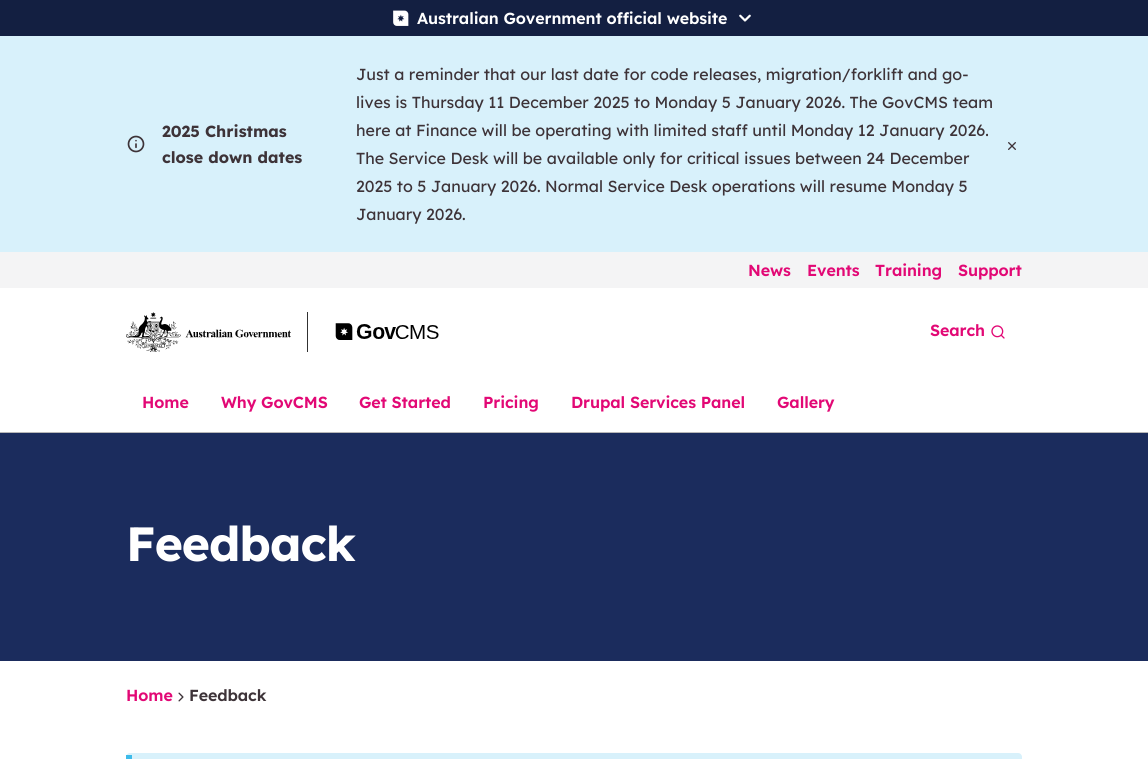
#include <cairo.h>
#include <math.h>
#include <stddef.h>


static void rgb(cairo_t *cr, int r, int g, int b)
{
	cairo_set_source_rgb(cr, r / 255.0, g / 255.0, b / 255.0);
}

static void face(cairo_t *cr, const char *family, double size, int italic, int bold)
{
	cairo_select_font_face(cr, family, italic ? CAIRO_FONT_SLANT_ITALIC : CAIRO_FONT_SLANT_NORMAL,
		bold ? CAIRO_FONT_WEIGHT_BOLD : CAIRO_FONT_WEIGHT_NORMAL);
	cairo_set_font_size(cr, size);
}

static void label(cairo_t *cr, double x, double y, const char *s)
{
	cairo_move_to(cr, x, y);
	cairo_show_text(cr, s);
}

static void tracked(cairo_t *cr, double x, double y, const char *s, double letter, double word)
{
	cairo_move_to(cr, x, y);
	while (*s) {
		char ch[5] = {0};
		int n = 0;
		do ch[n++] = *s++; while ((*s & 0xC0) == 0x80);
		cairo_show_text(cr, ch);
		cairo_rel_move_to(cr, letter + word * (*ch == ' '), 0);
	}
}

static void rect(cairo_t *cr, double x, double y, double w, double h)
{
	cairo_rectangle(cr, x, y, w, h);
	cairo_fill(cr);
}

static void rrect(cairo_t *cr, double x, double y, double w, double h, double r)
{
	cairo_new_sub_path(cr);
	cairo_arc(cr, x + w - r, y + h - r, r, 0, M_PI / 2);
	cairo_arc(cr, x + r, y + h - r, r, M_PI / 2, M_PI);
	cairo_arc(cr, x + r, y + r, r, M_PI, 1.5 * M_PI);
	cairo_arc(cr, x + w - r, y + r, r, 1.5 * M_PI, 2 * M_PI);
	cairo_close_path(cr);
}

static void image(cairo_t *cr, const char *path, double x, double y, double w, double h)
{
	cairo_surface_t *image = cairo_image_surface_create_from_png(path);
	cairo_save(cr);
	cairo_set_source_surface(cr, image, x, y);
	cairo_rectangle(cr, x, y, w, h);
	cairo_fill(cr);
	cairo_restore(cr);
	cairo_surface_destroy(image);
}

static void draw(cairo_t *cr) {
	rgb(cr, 255, 255, 255);
	cairo_paint(cr);
	rgb(cr, 19, 31, 65);
	rect(cr, 0, 0, 1148, 36);
	image(cr, "image0.png", 393, 10, 16, 16);
	face(cr, "Lexend SemiBold", 16, 0, 0);
	rgb(cr, 255, 255, 255);
	tracked(cr, 417, 24, "Australian Government official website", -0.1, 0);
	image(cr, "image1.png", 739, 14, 12, 8);
	rgb(cr, 216, 241, 251);
	rect(cr, 0, 36, 1148, 216);
	face(cr, "Lexend", 16, 0, 1);
	rgb(cr, 61, 51, 56);
	label(cr, 162, 137, "2025 Christmas");
	image(cr, "image2.png", 127, 135, 18, 18);
	label(cr, 162, 163, "close down dates");
	face(cr, "Lexend", 16, 0, 0);
	label(cr, 356, 80, "Just a reminder that our last date for code releases, migration/forklift and go-");
	label(cr, 356, 108, "lives is Thursday 11 December 2025 to Monday 5 January 2026. The GovCMS team");
	label(cr, 356, 136, "here at Finance will be operating with limited staff until Monday 12 January 2026.");
	label(cr, 356, 164, "The Service Desk will be available only for critical issues between 24 December");
	label(cr, 356, 192, "2025 to 5 January 2026. Normal Service Desk operations will resume Monday 5");
	label(cr, 356, 220, "January 2026.");
	image(cr, "image3.png", 1008, 142, 8, 8);
	rgb(cr, 183, 183, 184);
	rect(cr, 0, 432, 1148, 1);
	rgb(cr, 244, 244, 245);
	rect(cr, 0, 252, 1148, 36);
	face(cr, "Lexend SemiBold", 16, 0, 0);
	rgb(cr, 226, 8, 117);
	tracked(cr, 748, 276, "News", -0.1, 0);
	tracked(cr, 807, 276, "Events", -0.1, 0);
	tracked(cr, 875, 276, "Training", -0.1, 0);
	tracked(cr, 958, 276, "Support", -0.1, 0);
	image(cr, "image4.png", 126, 312, 165, 40);
	rgb(cr, 49, 49, 49);
	rect(cr, 307, 312, 1, 40);
	image(cr, "image5.png", 335, 323, 104, 17);
	rgb(cr, 226, 8, 117);
	tracked(cr, 930, 336, "Search", -0.1, 0);
	image(cr, "image6.png", 991, 325, 14, 14);
	tracked(cr, 142, 408, "Home", -0.1, 0);
	tracked(cr, 221, 408, "Why GovCMS", -0.1, 0);
	tracked(cr, 359, 408, "Get Started", -0.1, 0);
	tracked(cr, 483, 408, "Pricing", -0.1, 0);
	tracked(cr, 571, 408, "Drupal Services Panel", -0.1, 0);
	tracked(cr, 777, 408, "Gallery", -0.1, 0);
	rgb(cr, 27, 44, 93);
	rect(cr, 0, 433, 1148, 228);
	face(cr, "Lexend", 48, 0, 1);
	rgb(cr, 255, 255, 255);
	tracked(cr, 126, 561, "Feedback", -1, 0);
	face(cr, "Lexend SemiBold", 16, 0, 0);
	rgb(cr, 226, 8, 117);
	tracked(cr, 126, 701, "Home", -0.1, 0);
	image(cr, "image7.png", 178, 692, 6, 10);
	rgb(cr, 61, 51, 56);
	tracked(cr, 189, 701, "Feedback", -0.1, 0);
	rgb(cr, 216, 241, 251);
	rrect(cr, 126, 753, 896, 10, 4);
	cairo_fill(cr);
	rgb(cr, 61, 187, 234);
	rect(cr, 126, 755, 6, 4);
}

int main(void) {
	cairo_surface_t *surface = cairo_image_surface_create(CAIRO_FORMAT_RGB24, 1148, 759);
	cairo_t *cr = cairo_create(surface);
	cairo_font_options_t *options = cairo_font_options_create();
	cairo_font_options_set_hint_metrics(options, CAIRO_HINT_METRICS_OFF);
	cairo_font_options_set_hint_style(options, CAIRO_HINT_STYLE_NONE);
	cairo_set_font_options(cr, options);
	cairo_set_miter_limit(cr, 4);
	draw(cr);
	cairo_surface_write_to_png(surface, "render.png");
	cairo_font_options_destroy(options);
	cairo_destroy(cr);
	cairo_surface_destroy(surface);
	return 0;
}
